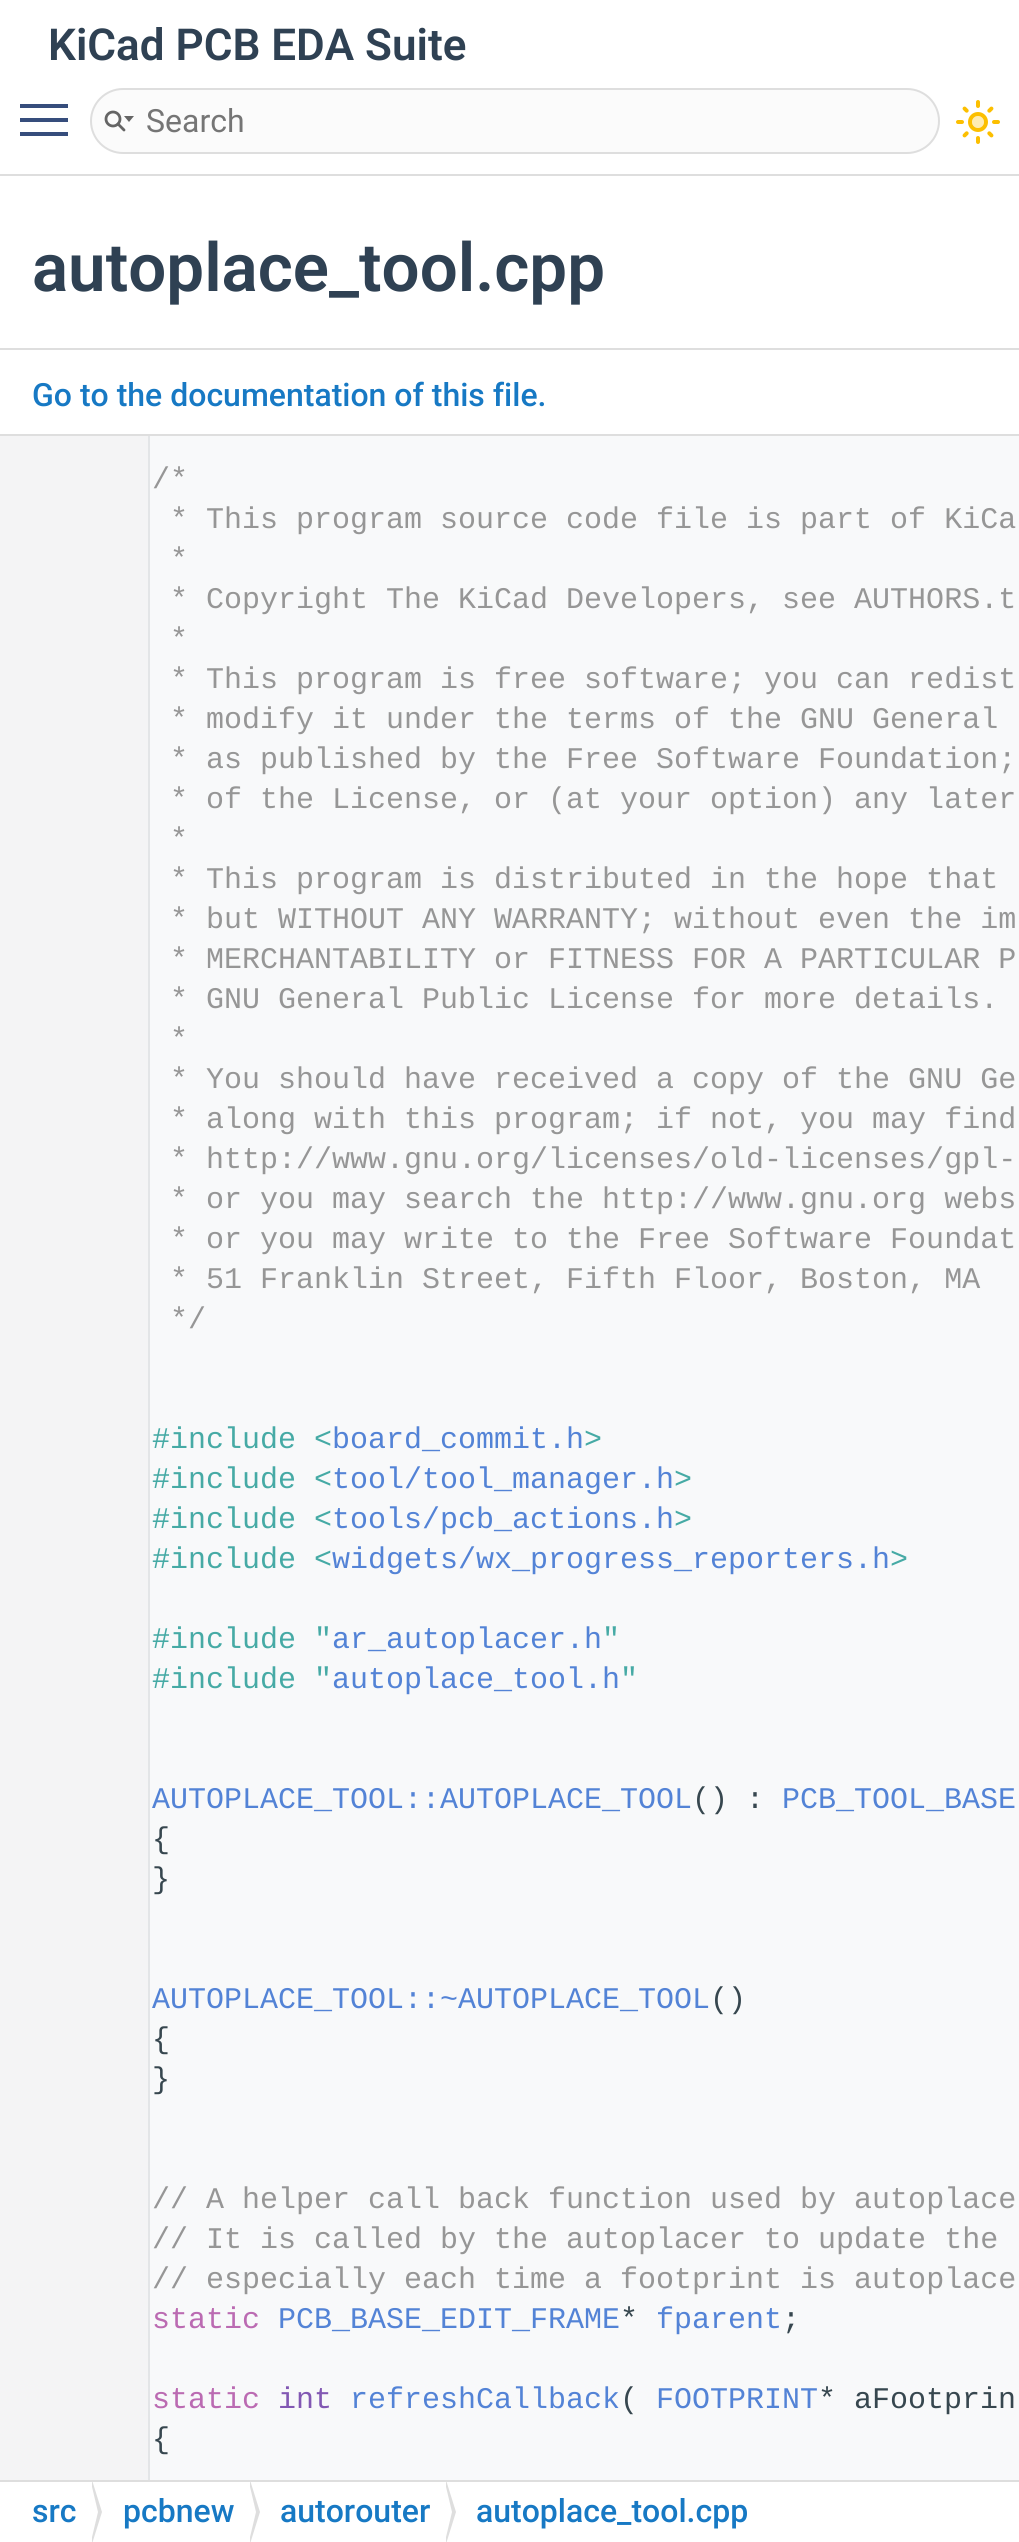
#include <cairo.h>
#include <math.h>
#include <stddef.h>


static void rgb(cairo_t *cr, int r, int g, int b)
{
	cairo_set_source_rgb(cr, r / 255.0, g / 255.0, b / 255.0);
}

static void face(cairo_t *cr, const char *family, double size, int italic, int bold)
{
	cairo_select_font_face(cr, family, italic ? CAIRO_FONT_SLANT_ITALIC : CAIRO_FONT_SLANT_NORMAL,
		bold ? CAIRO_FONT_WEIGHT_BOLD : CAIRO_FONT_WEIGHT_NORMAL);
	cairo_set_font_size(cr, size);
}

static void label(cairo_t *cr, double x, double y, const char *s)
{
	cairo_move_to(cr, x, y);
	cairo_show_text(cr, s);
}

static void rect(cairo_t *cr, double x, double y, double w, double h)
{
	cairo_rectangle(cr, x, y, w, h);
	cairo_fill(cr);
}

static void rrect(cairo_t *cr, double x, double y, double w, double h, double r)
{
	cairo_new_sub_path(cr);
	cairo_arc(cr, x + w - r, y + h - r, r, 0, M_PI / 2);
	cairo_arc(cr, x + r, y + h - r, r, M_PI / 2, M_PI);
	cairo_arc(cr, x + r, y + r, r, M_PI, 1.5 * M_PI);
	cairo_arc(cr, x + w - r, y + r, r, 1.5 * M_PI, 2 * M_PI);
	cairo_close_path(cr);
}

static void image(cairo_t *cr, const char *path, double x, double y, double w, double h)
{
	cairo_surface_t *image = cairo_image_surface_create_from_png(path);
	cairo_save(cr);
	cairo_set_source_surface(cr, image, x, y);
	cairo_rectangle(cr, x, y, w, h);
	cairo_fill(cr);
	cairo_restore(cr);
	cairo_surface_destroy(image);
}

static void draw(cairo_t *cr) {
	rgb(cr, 255, 255, 255);
	cairo_paint(cr);
	rgb(cr, 222, 222, 222);
	rect(cr, 0, 174, 1019, 2);
	face(cr, "Roboto SemiBold", 44, 0, 0);
	rgb(cr, 47, 65, 83);
	label(cr, 48, 60, "KiCad PCB EDA Suite");
	rgb(cr, 54, 77, 124);
	rect(cr, 20, 118, 48, 4);
	rect(cr, 20, 104, 48, 4);
	rect(cr, 20, 132, 48, 4);
	rgb(cr, 251, 251, 251);
	rrect(cr, 91, 89, 848, 64, 32);
	cairo_fill_preserve(cr);
	rgb(cr, 222, 222, 222);
	cairo_stroke(cr);
	cairo_arc(cr, 113, 119, 7, 0, 2 * M_PI);
	rgb(cr, 101, 101, 101);
	cairo_set_line_width(cr, 2.8);
	cairo_stroke(cr);
	cairo_new_path(cr);
	cairo_move_to(cr, 124, 116);
	cairo_line_to(cr, 129, 122);
	cairo_line_to(cr, 134, 116);
	cairo_close_path(cr);
	cairo_fill(cr);
	cairo_new_path(cr);
	cairo_move_to(cr, 118, 124);
	cairo_line_to(cr, 124, 130);
	cairo_set_line_cap(cr, CAIRO_LINE_CAP_ROUND);
	cairo_stroke(cr);
	face(cr, "Roboto", 32, 0, 0);
	rgb(cr, 117, 117, 117);
	label(cr, 146, 132, "Search");
	image(cr, "image0.png", 956, 100, 44, 44);
	rgb(cr, 222, 222, 222);
	rect(cr, 0, 348, 1019, 2);
	face(cr, "Roboto SemiBold", 67.25, 0, 0);
	rgb(cr, 47, 65, 83);
	label(cr, 32, 291, "autoplace_tool.cpp");
	face(cr, "Roboto Medium", 32, 0, 0);
	rgb(cr, 23, 121, 196);
	label(cr, 32, 406, "Go to the documentation of this file.");
	rgb(cr, 248, 249, 250);
	rect(cr, 150, 436, 869, 2044);
	rgb(cr, 222, 222, 222);
	rect(cr, 0, 434, 1019, 2);
	cairo_save(cr);
	cairo_rectangle(cr, 0, 436, 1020, 2044);
	cairo_clip(cr);
	rgb(cr, 227, 229, 231);
	cairo_set_fill_rule(cr, CAIRO_FILL_RULE_EVEN_ODD);
	cairo_new_path(cr);
	cairo_move_to(cr, -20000, -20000);
	cairo_line_to(cr, 150, -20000);
	cairo_line_to(cr, 150, 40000);
	cairo_line_to(cr, -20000, 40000);
	cairo_close_path(cr);
	cairo_move_to(cr, 32, 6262);
	cairo_line_to(cr, 32, 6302);
	cairo_line_to(cr, 148, 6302);
	cairo_line_to(cr, 148, 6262);
	cairo_close_path(cr);
	cairo_fill(cr);
	rgb(cr, 244, 244, 245);
	cairo_set_fill_rule(cr, CAIRO_FILL_RULE_WINDING);
	cairo_new_path(cr);
	cairo_move_to(cr, -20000, -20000);
	cairo_line_to(cr, -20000, 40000);
	cairo_line_to(cr, 148, 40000);
	cairo_line_to(cr, 148, 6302);
	cairo_line_to(cr, 32, 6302);
	cairo_line_to(cr, 32, 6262);
	cairo_line_to(cr, 148, 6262);
	cairo_line_to(cr, 148, -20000);
	cairo_close_path(cr);
	cairo_fill(cr);
	cairo_restore(cr);
	face(cr, "Liberation Mono", 30, 0, 0);
	rgb(cr, 150, 150, 150);
	label(cr, 152, 488, "/*");
	label(cr, 170, 528, "* This program source code file is part of KiCa");
	label(cr, 170, 568, "*");
	label(cr, 170, 608, "* Copyright The KiCad Developers, see AUTHORS.t");
	label(cr, 170, 648, "*");
	label(cr, 170, 688, "* This program is free software; you can redist");
	label(cr, 170, 728, "* modify it under the terms of the GNU General");
	label(cr, 170, 768, "* as published by the Free Software Foundation;");
	label(cr, 170, 808, "* of the License, or (at your option) any later");
	label(cr, 170, 848, "*");
	label(cr, 170, 888, "* This program is distributed in the hope that");
	label(cr, 170, 928, "* but WITHOUT ANY WARRANTY; without even the im");
	label(cr, 170, 968, "* MERCHANTABILITY or FITNESS FOR A PARTICULAR P");
	label(cr, 170, 1008, "* GNU General Public License for more details.");
	label(cr, 170, 1048, "*");
	label(cr, 170, 1088, "* You should have received a copy of the GNU Ge");
	label(cr, 170, 1128, "* along with this program; if not, you may find");
	label(cr, 170, 1168, "* http://www.gnu.org/licenses/old-licenses/gpl-");
	label(cr, 170, 1208, "* or you may search the http://www.gnu.org webs");
	label(cr, 170, 1248, "* or you may write to the Free Software Foundat");
	label(cr, 170, 1288, "* 51 Franklin Street, Fifth Floor, Boston, MA");
	label(cr, 170, 1328, "*/");
	rgb(cr, 70, 170, 165);
	label(cr, 152, 1448, "#include <");
	rgb(cr, 83, 131, 214);
	label(cr, 332, 1448, "board_commit.h");
	rgb(cr, 70, 170, 165);
	label(cr, 584, 1448, ">");
	label(cr, 152, 1488, "#include <");
	rgb(cr, 83, 131, 214);
	label(cr, 332, 1488, "tool/tool_manager.h");
	rgb(cr, 70, 170, 165);
	label(cr, 674, 1488, ">");
	label(cr, 152, 1528, "#include <");
	rgb(cr, 83, 131, 214);
	label(cr, 332, 1528, "tools/pcb_actions.h");
	rgb(cr, 70, 170, 165);
	label(cr, 674, 1528, ">");
	label(cr, 152, 1568, "#include <");
	rgb(cr, 83, 131, 214);
	label(cr, 332, 1568, "widgets/wx_progress_reporters.h");
	rgb(cr, 70, 170, 165);
	label(cr, 890, 1568, ">");
	label(cr, 152, 1648, "#include \"");
	rgb(cr, 83, 131, 214);
	label(cr, 332, 1648, "ar_autoplacer.h");
	rgb(cr, 70, 170, 165);
	label(cr, 602, 1648, "\"");
	label(cr, 152, 1688, "#include \"");
	rgb(cr, 83, 131, 214);
	label(cr, 332, 1688, "autoplace_tool.h");
	rgb(cr, 70, 170, 165);
	label(cr, 620, 1688, "\"");
	rgb(cr, 83, 131, 214);
	label(cr, 152, 1808, "AUTOPLACE_TOOL::AUTOPLACE_TOOL");
	rgb(cr, 55, 71, 79);
	label(cr, 692, 1808, "() :");
	rgb(cr, 83, 131, 214);
	label(cr, 782, 1808, "PCB_TOOL_BASE");
	rgb(cr, 55, 71, 79);
	label(cr, 152, 1848, "{");
	label(cr, 152, 1888, "}");
	rgb(cr, 83, 131, 214);
	label(cr, 152, 2008, "AUTOPLACE_TOOL::~AUTOPLACE_TOOL");
	rgb(cr, 55, 71, 79);
	label(cr, 710, 2008, "()");
	label(cr, 152, 2048, "{");
	label(cr, 152, 2088, "}");
	rgb(cr, 150, 150, 150);
	label(cr, 152, 2208, "// A helper call back function used by autoplace");
	label(cr, 152, 2248, "// It is called by the autoplacer to update the");
	label(cr, 152, 2288, "// especially each time a footprint is autoplace");
	rgb(cr, 187, 107, 178);
	label(cr, 152, 2328, "static");
	rgb(cr, 83, 131, 214);
	label(cr, 278, 2328, "PCB_BASE_EDIT_FRAME");
	rgb(cr, 55, 71, 79);
	label(cr, 620, 2328, "*");
	rgb(cr, 83, 131, 214);
	label(cr, 656, 2328, "fparent");
	rgb(cr, 55, 71, 79);
	label(cr, 782, 2328, ";");
	rgb(cr, 187, 107, 178);
	label(cr, 152, 2408, "static");
	rgb(cr, 130, 88, 179);
	label(cr, 278, 2408, "int");
	rgb(cr, 83, 131, 214);
	label(cr, 350, 2408, "refreshCallback");
	rgb(cr, 55, 71, 79);
	label(cr, 620, 2408, "(");
	rgb(cr, 83, 131, 214);
	label(cr, 656, 2408, "FOOTPRINT");
	rgb(cr, 55, 71, 79);
	label(cr, 818, 2408, "* aFootprin");
	label(cr, 152, 2448, "{");
	rgb(cr, 222, 222, 222);
	rect(cr, 0, 2480, 1019, 2);
	face(cr, "Roboto Medium", 32, 0, 0);
	rgb(cr, 23, 121, 196);
	label(cr, 32, 2522, "src");
	rgb(cr, 222, 222, 222);
	cairo_new_path(cr);
	cairo_move_to(cr, 92, 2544);
	cairo_line_to(cr, 92, 2480);
	cairo_line_to(cr, 102, 2512);
	cairo_close_path(cr);
	cairo_fill(cr);
	cairo_save(cr);
	cairo_rectangle(cr, 0, 2482, 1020, 60);
	cairo_clip(cr);
	rgb(cr, 255, 255, 255);
	cairo_new_path(cr);
	cairo_move_to(cr, 88, 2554);
	cairo_line_to(cr, 88, 2470);
	cairo_line_to(cr, 98, 2512);
	cairo_close_path(cr);
	cairo_fill(cr);
	cairo_restore(cr);
	rgb(cr, 23, 121, 196);
	label(cr, 123, 2522, "pcbnew");
	rgb(cr, 222, 222, 222);
	cairo_new_path(cr);
	cairo_move_to(cr, 250, 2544);
	cairo_line_to(cr, 250, 2480);
	cairo_line_to(cr, 260, 2512);
	cairo_close_path(cr);
	cairo_fill(cr);
	cairo_save(cr);
	cairo_rectangle(cr, 0, 2482, 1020, 60);
	cairo_clip(cr);
	rgb(cr, 255, 255, 255);
	cairo_new_path(cr);
	cairo_move_to(cr, 246, 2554);
	cairo_line_to(cr, 246, 2470);
	cairo_line_to(cr, 256, 2512);
	cairo_close_path(cr);
	cairo_fill(cr);
	cairo_restore(cr);
	rgb(cr, 23, 121, 196);
	label(cr, 280, 2522, "autorouter");
	rgb(cr, 222, 222, 222);
	cairo_new_path(cr);
	cairo_move_to(cr, 446, 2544);
	cairo_line_to(cr, 446, 2480);
	cairo_line_to(cr, 456, 2512);
	cairo_close_path(cr);
	cairo_fill(cr);
	cairo_save(cr);
	cairo_rectangle(cr, 0, 2482, 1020, 60);
	cairo_clip(cr);
	rgb(cr, 255, 255, 255);
	cairo_new_path(cr);
	cairo_move_to(cr, 442, 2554);
	cairo_line_to(cr, 442, 2470);
	cairo_line_to(cr, 452, 2512);
	cairo_close_path(cr);
	cairo_fill(cr);
	cairo_restore(cr);
	rgb(cr, 23, 121, 196);
	label(cr, 476, 2522, "autoplace_tool.cpp");
}

int main(void) {
	cairo_surface_t *surface = cairo_image_surface_create(CAIRO_FORMAT_RGB24, 1019, 2542);
	cairo_t *cr = cairo_create(surface);
	cairo_font_options_t *options = cairo_font_options_create();
	cairo_font_options_set_hint_metrics(options, CAIRO_HINT_METRICS_OFF);
	cairo_font_options_set_hint_style(options, CAIRO_HINT_STYLE_NONE);
	cairo_set_font_options(cr, options);
	cairo_set_miter_limit(cr, 4);
	draw(cr);
	cairo_surface_write_to_png(surface, "render.png");
	cairo_font_options_destroy(options);
	cairo_destroy(cr);
	cairo_surface_destroy(surface);
	return 0;
}
